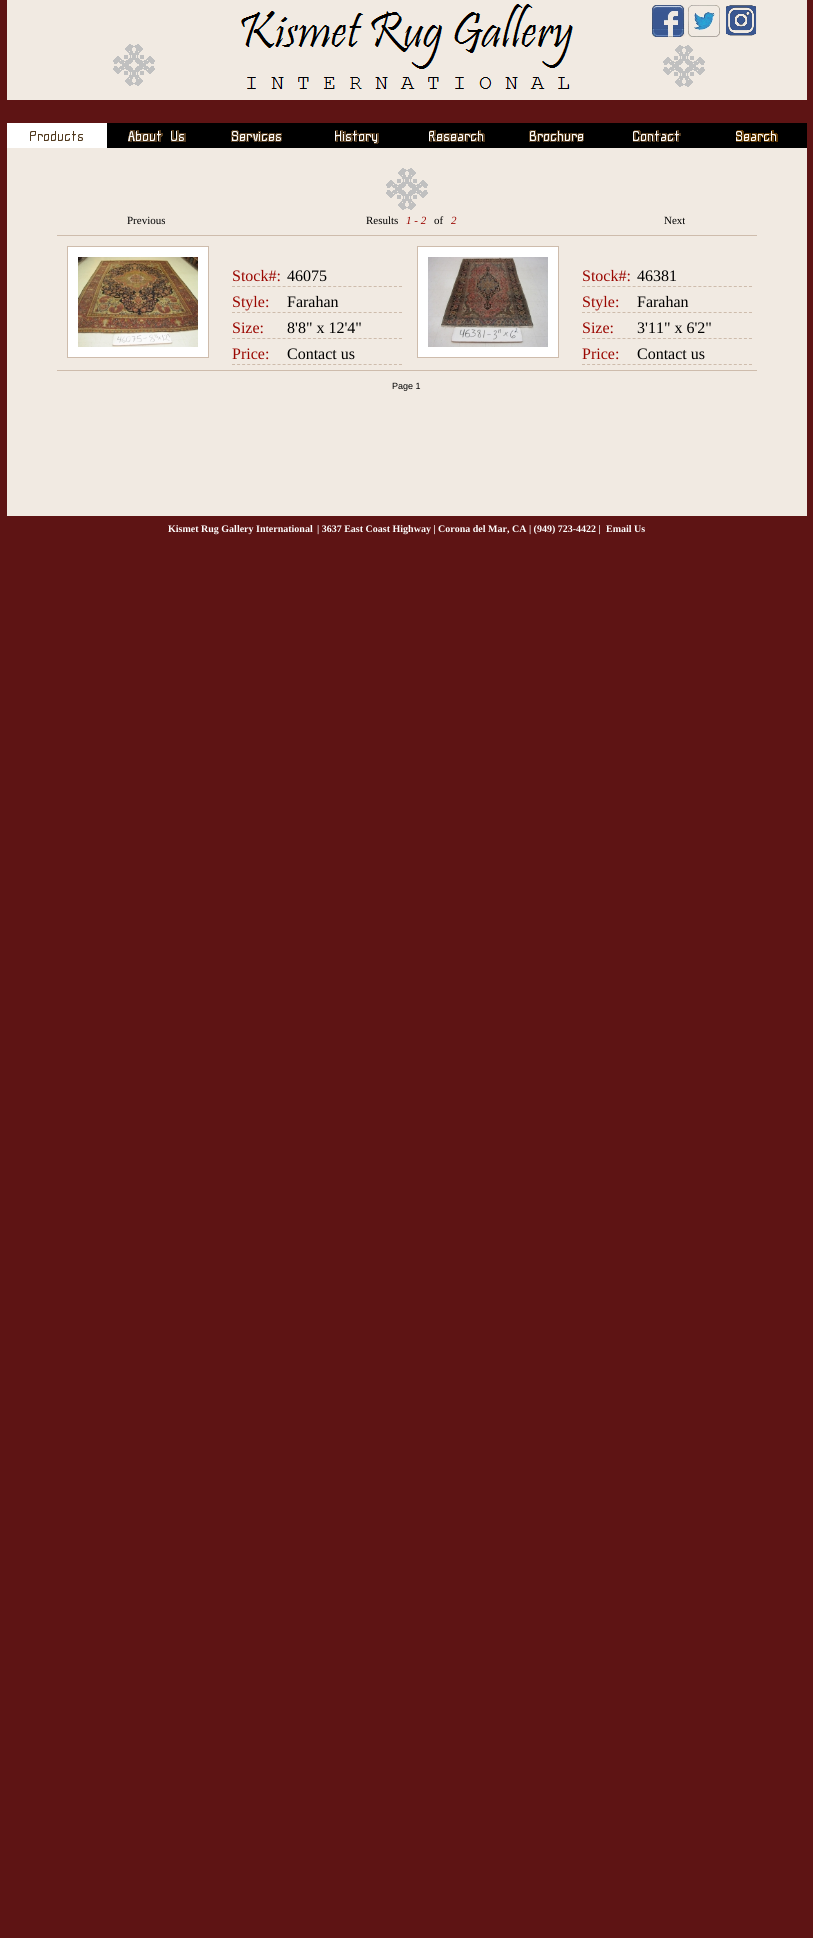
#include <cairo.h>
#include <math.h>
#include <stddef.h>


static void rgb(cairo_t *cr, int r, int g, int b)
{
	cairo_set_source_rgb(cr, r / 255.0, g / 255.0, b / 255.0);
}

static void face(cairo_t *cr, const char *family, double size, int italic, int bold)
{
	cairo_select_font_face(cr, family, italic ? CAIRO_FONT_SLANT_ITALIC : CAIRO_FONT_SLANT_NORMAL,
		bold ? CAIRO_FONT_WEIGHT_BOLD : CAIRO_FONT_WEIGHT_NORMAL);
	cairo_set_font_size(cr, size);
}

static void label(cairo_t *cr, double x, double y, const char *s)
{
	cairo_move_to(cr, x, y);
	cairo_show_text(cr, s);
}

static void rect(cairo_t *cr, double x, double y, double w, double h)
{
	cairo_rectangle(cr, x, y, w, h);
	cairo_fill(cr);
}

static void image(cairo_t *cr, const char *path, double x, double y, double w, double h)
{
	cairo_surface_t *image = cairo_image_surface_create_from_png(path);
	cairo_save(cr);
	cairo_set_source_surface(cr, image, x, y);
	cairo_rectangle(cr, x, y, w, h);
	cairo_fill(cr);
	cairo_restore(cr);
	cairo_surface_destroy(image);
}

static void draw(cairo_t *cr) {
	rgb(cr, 94, 20, 20);
	cairo_paint(cr);
	image(cr, "image0.png", 7, 0, 800, 100);
	rgb(cr, 0, 0, 0);
	rect(cr, 107, 123, 700, 25);
	image(cr, "image1.png", 7, 123, 100, 25);
	image(cr, "image2.png", 128, 130, 58, 12);
	image(cr, "image3.png", 231, 130, 51, 12);
	image(cr, "image4.png", 335, 130, 44, 14);
	image(cr, "image5.png", 429, 130, 56, 12);
	image(cr, "image6.png", 529, 130, 55, 12);
	image(cr, "image7.png", 633, 130, 48, 12);
	image(cr, "image8.png", 736, 130, 42, 12);
	rgb(cr, 241, 234, 226);
	rect(cr, 7, 148, 800, 368);
	rgb(cr, 206, 188, 172);
	rect(cr, 57, 235, 700, 1);
	image(cr, "image9.png", 386, 168, 42, 42);
	face(cr, "Liberation Serif", 11, 0, 0);
	rgb(cr, 0, 0, 0);
	label(cr, 127, 224, "Previous");
	label(cr, 366, 224, "Results");
	face(cr, "Liberation Serif", 11, 1, 0);
	rgb(cr, 154, 6, 0);
	label(cr, 406, 224, "1 - 2");
	face(cr, "Liberation Serif", 11, 0, 0);
	rgb(cr, 0, 0, 0);
	label(cr, 434, 224, "of");
	face(cr, "Liberation Serif", 11, 1, 0);
	rgb(cr, 154, 6, 0);
	label(cr, 451, 224, "2");
	face(cr, "Liberation Serif", 11, 0, 0);
	rgb(cr, 0, 0, 0);
	label(cr, 664, 224, "Next");
	rgb(cr, 255, 255, 255);
	cairo_rectangle(cr, 67.5, 246.5, 141, 111);
	cairo_fill_preserve(cr);
	rgb(cr, 206, 188, 172);
	cairo_set_line_width(cr, 1);
	cairo_stroke(cr);
	image(cr, "image10.png", 78, 257, 120, 90);
	cairo_new_path(cr);
	cairo_move_to(cr, 232, 286.5);
	cairo_line_to(cr, 402, 286.5);
	cairo_set_dash(cr, (double[]){3, 2.06}, 2, 0);
	cairo_stroke(cr);
	face(cr, "Liberation Serif", 16, 0, 0);
	rgb(cr, 154, 6, 0);
	label(cr, 232, 281, "Stock#:");
	rgb(cr, 0, 0, 0);
	label(cr, 287, 281, "46075");
	cairo_new_path(cr);
	cairo_move_to(cr, 232, 312.5);
	cairo_line_to(cr, 402, 312.5);
	rgb(cr, 206, 188, 172);
	cairo_stroke(cr);
	rgb(cr, 154, 6, 0);
	label(cr, 232, 307, "Style:");
	rgb(cr, 0, 0, 0);
	label(cr, 287, 307, "Farahan");
	cairo_new_path(cr);
	cairo_move_to(cr, 232, 338.5);
	cairo_line_to(cr, 402, 338.5);
	rgb(cr, 206, 188, 172);
	cairo_stroke(cr);
	rgb(cr, 154, 6, 0);
	label(cr, 232, 333, "Size:");
	rgb(cr, 0, 0, 0);
	label(cr, 287, 333, "8'8\" x 12'4\"");
	cairo_new_path(cr);
	cairo_move_to(cr, 232, 364.5);
	cairo_line_to(cr, 402, 364.5);
	rgb(cr, 206, 188, 172);
	cairo_stroke(cr);
	rgb(cr, 154, 6, 0);
	label(cr, 232, 359, "Price:");
	rgb(cr, 0, 0, 0);
	label(cr, 287, 359, "Contact us");
	rgb(cr, 255, 255, 255);
	cairo_rectangle(cr, 417.5, 246.5, 141, 111);
	cairo_fill_preserve(cr);
	rgb(cr, 206, 188, 172);
	cairo_set_dash(cr, NULL, 0, 0);
	cairo_stroke(cr);
	image(cr, "image11.png", 428, 257, 120, 90);
	cairo_new_path(cr);
	cairo_move_to(cr, 582, 286.5);
	cairo_line_to(cr, 752, 286.5);
	cairo_set_dash(cr, (double[]){3, 2.06}, 2, 0);
	cairo_stroke(cr);
	rgb(cr, 154, 6, 0);
	label(cr, 582, 281, "Stock#:");
	rgb(cr, 0, 0, 0);
	label(cr, 637, 281, "46381");
	cairo_new_path(cr);
	cairo_move_to(cr, 582, 312.5);
	cairo_line_to(cr, 752, 312.5);
	rgb(cr, 206, 188, 172);
	cairo_stroke(cr);
	rgb(cr, 154, 6, 0);
	label(cr, 582, 307, "Style:");
	rgb(cr, 0, 0, 0);
	label(cr, 637, 307, "Farahan");
	cairo_new_path(cr);
	cairo_move_to(cr, 582, 338.5);
	cairo_line_to(cr, 752, 338.5);
	rgb(cr, 206, 188, 172);
	cairo_stroke(cr);
	rgb(cr, 154, 6, 0);
	label(cr, 582, 333, "Size:");
	rgb(cr, 0, 0, 0);
	label(cr, 637, 333, "3'11\" x 6'2\"");
	cairo_new_path(cr);
	cairo_move_to(cr, 582, 364.5);
	cairo_line_to(cr, 752, 364.5);
	rgb(cr, 206, 188, 172);
	cairo_stroke(cr);
	rgb(cr, 154, 6, 0);
	label(cr, 582, 359, "Price:");
	rgb(cr, 0, 0, 0);
	label(cr, 637, 359, "Contact us");
	rgb(cr, 206, 188, 172);
	rect(cr, 57, 370, 700, 1);
	face(cr, "Liberation Sans", 9, 0, 0);
	rgb(cr, 0, 0, 0);
	label(cr, 392, 389, "Page 1");
	face(cr, "Liberation Serif", 10, 0, 1);
	rgb(cr, 255, 255, 255);
	label(cr, 168, 532, "Kismet Rug Gallery International");
	label(cr, 317, 532, "| 3637 East Coast Highway | Corona del Mar, CA | (949) 723-4422 |");
	label(cr, 606, 532, "Email Us");
}

int main(void) {
	cairo_surface_t *surface = cairo_image_surface_create(CAIRO_FORMAT_RGB24, 813, 1938);
	cairo_t *cr = cairo_create(surface);
	cairo_font_options_t *options = cairo_font_options_create();
	cairo_font_options_set_hint_metrics(options, CAIRO_HINT_METRICS_OFF);
	cairo_font_options_set_hint_style(options, CAIRO_HINT_STYLE_NONE);
	cairo_set_font_options(cr, options);
	cairo_set_miter_limit(cr, 4);
	draw(cr);
	cairo_surface_write_to_png(surface, "render.png");
	cairo_font_options_destroy(options);
	cairo_destroy(cr);
	cairo_surface_destroy(surface);
	return 0;
}
